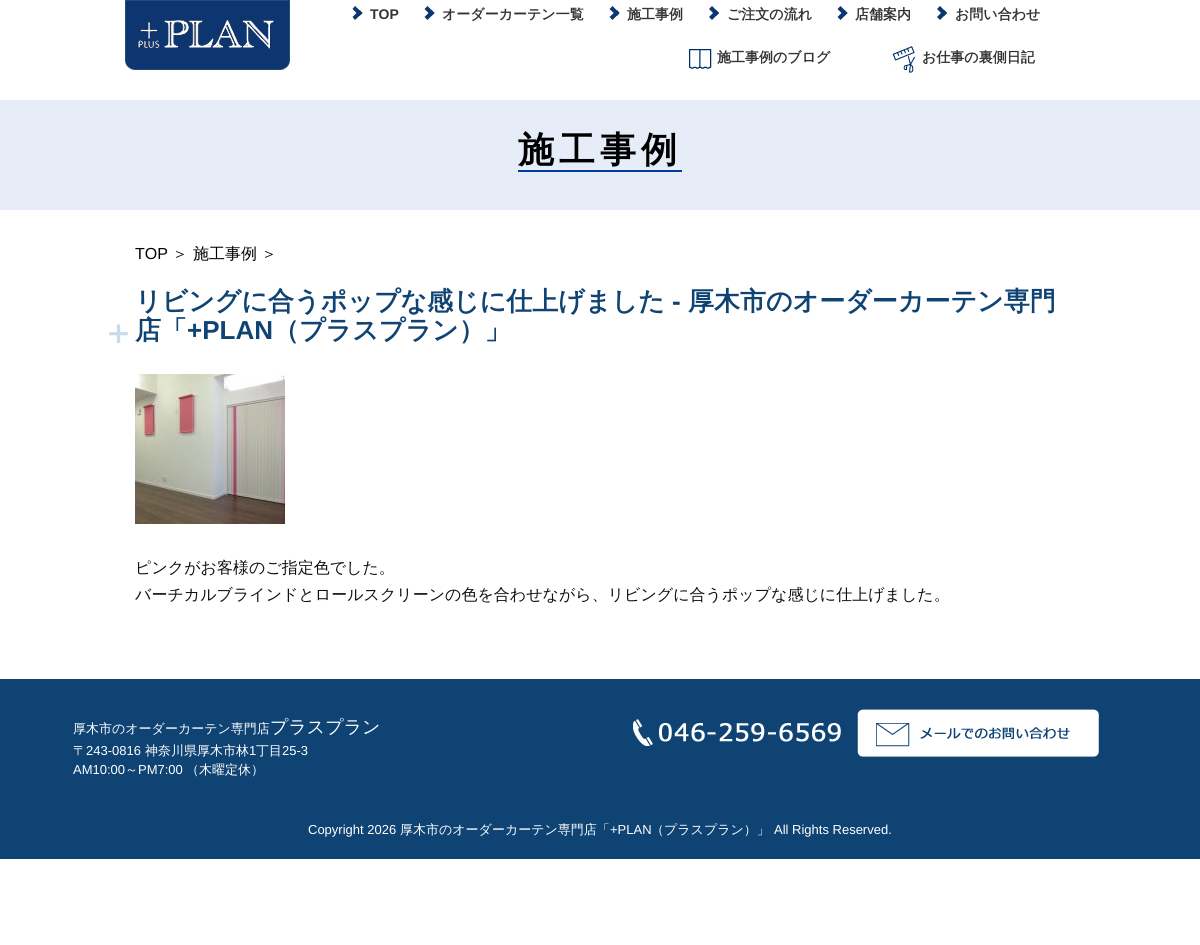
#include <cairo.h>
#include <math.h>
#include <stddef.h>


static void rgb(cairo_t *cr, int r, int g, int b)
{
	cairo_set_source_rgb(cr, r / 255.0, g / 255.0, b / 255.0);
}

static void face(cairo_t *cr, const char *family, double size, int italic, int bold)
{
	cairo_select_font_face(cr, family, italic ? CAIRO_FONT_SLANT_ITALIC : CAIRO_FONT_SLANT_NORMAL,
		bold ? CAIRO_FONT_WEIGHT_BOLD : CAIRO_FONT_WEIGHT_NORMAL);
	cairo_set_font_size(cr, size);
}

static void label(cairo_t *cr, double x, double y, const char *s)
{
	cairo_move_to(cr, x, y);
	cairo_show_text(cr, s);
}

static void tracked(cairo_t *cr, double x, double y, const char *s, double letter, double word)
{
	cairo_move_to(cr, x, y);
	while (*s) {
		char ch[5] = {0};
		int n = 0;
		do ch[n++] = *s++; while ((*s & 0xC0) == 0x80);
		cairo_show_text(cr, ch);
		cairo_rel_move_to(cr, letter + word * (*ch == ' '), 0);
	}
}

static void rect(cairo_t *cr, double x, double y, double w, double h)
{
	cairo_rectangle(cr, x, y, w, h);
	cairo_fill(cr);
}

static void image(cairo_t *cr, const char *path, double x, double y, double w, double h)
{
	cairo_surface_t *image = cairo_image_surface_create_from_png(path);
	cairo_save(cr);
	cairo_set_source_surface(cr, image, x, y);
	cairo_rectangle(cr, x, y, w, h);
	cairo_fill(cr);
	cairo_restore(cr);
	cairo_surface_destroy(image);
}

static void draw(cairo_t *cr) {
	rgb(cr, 255, 255, 255);
	cairo_paint(cr);
	image(cr, "image0.png", 125, 0, 165, 70);
	rgb(cr, 13, 53, 111);
	cairo_new_path(cr);
	cairo_move_to(cr, 355, 6);
	cairo_line_to(cr, 362.5, 13);
	cairo_line_to(cr, 359.5, 16);
	cairo_line_to(cr, 352.5, 9);
	cairo_close_path(cr);
	cairo_fill(cr);
	cairo_new_path(cr);
	cairo_move_to(cr, 359.5, 10);
	cairo_line_to(cr, 362.5, 13);
	cairo_line_to(cr, 355, 20);
	cairo_line_to(cr, 352.5, 17);
	cairo_close_path(cr);
	cairo_fill(cr);
	face(cr, "Liberation Sans", 14, 0, 1);
	rgb(cr, 51, 51, 51);
	label(cr, 370, 19, "TOP");
	rgb(cr, 13, 53, 111);
	cairo_new_path(cr);
	cairo_move_to(cr, 427.5, 6);
	cairo_line_to(cr, 434.5, 13);
	cairo_line_to(cr, 431.5, 16);
	cairo_line_to(cr, 424.5, 9);
	cairo_close_path(cr);
	cairo_fill(cr);
	cairo_new_path(cr);
	cairo_move_to(cr, 431.5, 10);
	cairo_line_to(cr, 434.5, 13);
	cairo_line_to(cr, 427.5, 20);
	cairo_line_to(cr, 424.5, 17);
	cairo_close_path(cr);
	cairo_fill(cr);
	face(cr, "WenQuanYi Zen Hei", 14, 0, 1);
	rgb(cr, 51, 51, 51);
	label(cr, 442, 19, "オーダーカーテン一覧");
	rgb(cr, 13, 53, 111);
	cairo_new_path(cr);
	cairo_move_to(cr, 612.5, 6);
	cairo_line_to(cr, 619.5, 13);
	cairo_line_to(cr, 617, 16);
	cairo_line_to(cr, 609.5, 9);
	cairo_close_path(cr);
	cairo_fill(cr);
	cairo_new_path(cr);
	cairo_move_to(cr, 617, 10);
	cairo_line_to(cr, 619.5, 13);
	cairo_line_to(cr, 612.5, 20);
	cairo_line_to(cr, 609.5, 17);
	cairo_close_path(cr);
	cairo_fill(cr);
	rgb(cr, 51, 51, 51);
	label(cr, 627, 19, "施工事例");
	rgb(cr, 13, 53, 111);
	cairo_new_path(cr);
	cairo_move_to(cr, 712, 6);
	cairo_line_to(cr, 719, 13);
	cairo_line_to(cr, 716, 16);
	cairo_line_to(cr, 709, 9);
	cairo_close_path(cr);
	cairo_fill(cr);
	cairo_new_path(cr);
	cairo_move_to(cr, 716, 10);
	cairo_line_to(cr, 719, 13);
	cairo_line_to(cr, 712, 20);
	cairo_line_to(cr, 709, 17);
	cairo_close_path(cr);
	cairo_fill(cr);
	rgb(cr, 51, 51, 51);
	label(cr, 727, 19, "ご注文の流れ");
	rgb(cr, 13, 53, 111);
	cairo_new_path(cr);
	cairo_move_to(cr, 840.5, 6);
	cairo_line_to(cr, 847.5, 13);
	cairo_line_to(cr, 844.5, 16);
	cairo_line_to(cr, 837.5, 9);
	cairo_close_path(cr);
	cairo_fill(cr);
	cairo_new_path(cr);
	cairo_move_to(cr, 844.5, 10);
	cairo_line_to(cr, 847.5, 13);
	cairo_line_to(cr, 840.5, 20);
	cairo_line_to(cr, 837.5, 17);
	cairo_close_path(cr);
	cairo_fill(cr);
	rgb(cr, 51, 51, 51);
	label(cr, 855, 19, "店舗案内");
	rgb(cr, 13, 53, 111);
	cairo_new_path(cr);
	cairo_move_to(cr, 940, 6);
	cairo_line_to(cr, 947, 13);
	cairo_line_to(cr, 944, 16);
	cairo_line_to(cr, 937, 9);
	cairo_close_path(cr);
	cairo_fill(cr);
	cairo_new_path(cr);
	cairo_move_to(cr, 944, 10);
	cairo_line_to(cr, 947, 13);
	cairo_line_to(cr, 940, 20);
	cairo_line_to(cr, 937, 17);
	cairo_close_path(cr);
	cairo_fill(cr);
	rgb(cr, 51, 51, 51);
	label(cr, 955, 19, "お問い合わせ");
	image(cr, "image1.png", 686, 47, 26, 25);
	label(cr, 717, 62, "施工事例のブログ");
	image(cr, "image2.png", 889, 42, 28, 31);
	label(cr, 922, 62, "お仕事の裏側日記");
	rgb(cr, 230, 237, 248);
	rect(cr, 0, 100, 1200, 110);
	face(cr, "WenQuanYi Zen Hei", 36, 0, 1);
	rgb(cr, 0, 0, 0);
	tracked(cr, 518, 162, "施工事例", 5, 0);
	rgb(cr, 1, 61, 154);
	rect(cr, 518, 170, 164, 2);
	face(cr, "Liberation Sans", 16, 0, 0);
	rgb(cr, 0, 0, 0);
	label(cr, 135, 259, "TOP");
	face(cr, "WenQuanYi Zen Hei Medium", 16, 0, 0);
	rgb(cr, 16, 16, 16);
	label(cr, 172, 259, "＞");
	rgb(cr, 0, 0, 0);
	label(cr, 193, 259, "施工事例");
	rgb(cr, 16, 16, 16);
	label(cr, 261, 259, "＞");
	face(cr, "WenQuanYi Zen Hei", 26, 0, 1);
	rgb(cr, 15, 67, 115);
	label(cr, 135, 310, "リビングに合うポップな感じに仕上げました");
	face(cr, "Liberation Sans", 26, 0, 1);
	label(cr, 672, 310, "-");
	face(cr, "WenQuanYi Zen Hei", 26, 0, 1);
	label(cr, 688, 310, "厚木市のオーダーカーテン専門");
	face(cr, "WenQuanYi Zen Hei", 34, 0, 1);
	rgb(cr, 201, 219, 235);
	label(cr, 101, 344, "＋");
	face(cr, "WenQuanYi Zen Hei", 26, 0, 1);
	rgb(cr, 15, 67, 115);
	label(cr, 135, 339, "店「");
	face(cr, "Liberation Sans", 26, 0, 1);
	label(cr, 187, 339, "+PLAN");
	face(cr, "WenQuanYi Zen Hei", 26, 0, 1);
	label(cr, 273, 339, "（プラスプラン）」");
	image(cr, "image3.png", 135, 374, 150, 150);
	face(cr, "WenQuanYi Zen Hei Medium", 16, 0, 0);
	rgb(cr, 16, 16, 16);
	label(cr, 135, 573, "ピンクがお客様のご指定色でした。");
	label(cr, 135, 600, "バーチカルブラインドとロールスクリーンの色を合わせながら、リビングに合うポップな感じに仕上げました。");
	rgb(cr, 15, 67, 115);
	rect(cr, 0, 679, 1200, 180);
	face(cr, "WenQuanYi Zen Hei Medium", 13, 0, 0);
	rgb(cr, 255, 255, 255);
	label(cr, 73, 733, "厚木市のオーダーカーテン専門店");
	face(cr, "WenQuanYi Zen Hei Medium", 18, 0, 0);
	label(cr, 270, 733, "プラスプラン");
	face(cr, "WenQuanYi Zen Hei Medium", 13, 0, 0);
	label(cr, 73, 755, "〒");
	face(cr, "Liberation Sans", 13, 0, 0);
	label(cr, 86, 755, "243-0816");
	face(cr, "WenQuanYi Zen Hei Medium", 13, 0, 0);
	label(cr, 145, 755, "神奈川県厚木市林");
	face(cr, "Liberation Sans", 13, 0, 0);
	label(cr, 249, 755, "1");
	face(cr, "WenQuanYi Zen Hei Medium", 13, 0, 0);
	label(cr, 256, 755, "丁目");
	face(cr, "Liberation Sans", 13, 0, 0);
	label(cr, 282, 755, "25-3");
	label(cr, 73, 774, "AM10:00");
	face(cr, "WenQuanYi Zen Hei Medium", 13, 0, 0);
	label(cr, 125, 774, "～");
	face(cr, "Liberation Sans", 13, 0, 0);
	label(cr, 138, 774, "PM7:00");
	face(cr, "WenQuanYi Zen Hei Medium", 13, 0, 0);
	label(cr, 186, 774, "（木曜定休）");
	image(cr, "image4.png", 633, 719, 208, 27);
	image(cr, "image5.png", 857, 709, 242, 48);
	face(cr, "Liberation Sans", 13, 0, 0);
	label(cr, 308, 834, "Copyright 2026");
	face(cr, "WenQuanYi Zen Hei Medium", 13, 0, 0);
	label(cr, 400, 834, "厚木市のオーダーカーテン専門店「");
	face(cr, "Liberation Sans", 13, 0, 0);
	label(cr, 610, 834, "+PLAN");
	face(cr, "WenQuanYi Zen Hei Medium", 13, 0, 0);
	label(cr, 651, 834, "（プラスプラン）」");
	face(cr, "Liberation Sans", 13, 0, 0);
	label(cr, 774, 834, "All Rights Reserved.");
}

int main(void) {
	cairo_surface_t *surface = cairo_image_surface_create(CAIRO_FORMAT_RGB24, 1200, 945);
	cairo_t *cr = cairo_create(surface);
	cairo_font_options_t *options = cairo_font_options_create();
	cairo_font_options_set_hint_metrics(options, CAIRO_HINT_METRICS_OFF);
	cairo_font_options_set_hint_style(options, CAIRO_HINT_STYLE_NONE);
	cairo_set_font_options(cr, options);
	cairo_set_miter_limit(cr, 4);
	draw(cr);
	cairo_surface_write_to_png(surface, "render.png");
	cairo_font_options_destroy(options);
	cairo_destroy(cr);
	cairo_surface_destroy(surface);
	return 0;
}
